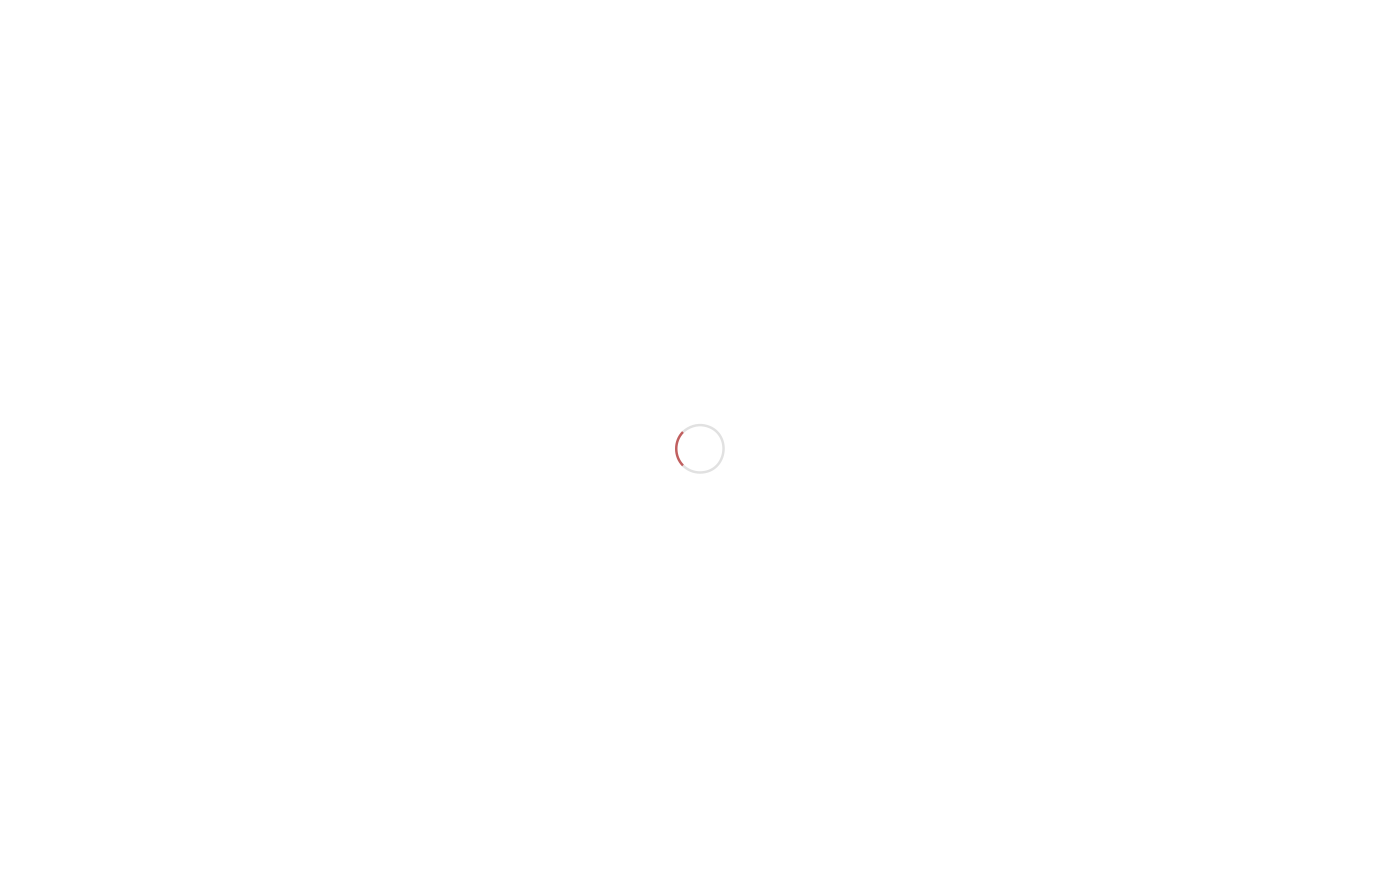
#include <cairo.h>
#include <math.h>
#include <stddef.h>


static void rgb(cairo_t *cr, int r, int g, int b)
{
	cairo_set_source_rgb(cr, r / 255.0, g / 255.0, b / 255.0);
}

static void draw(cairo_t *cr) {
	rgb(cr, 255, 255, 255);
	cairo_paint(cr);
	cairo_new_path(cr);
	cairo_move_to(cr, 683, 432);
	cairo_curve_to(cr, 689, 426.5, 697, 424, 704.5, 425.5);
	cairo_curve_to(cr, 732.5, 431, 728.5, 472.5, 700, 472.5);
	cairo_curve_to(cr, 693.5, 472.5, 687.5, 470, 683, 465.5);
	rgb(cr, 225, 225, 225);
	cairo_set_line_width(cr, 2.5);
	cairo_stroke(cr);
	cairo_new_path(cr);
	cairo_move_to(cr, 683, 465.5);
	cairo_curve_to(cr, 674, 456.5, 674, 441, 683, 432);
	rgb(cr, 192, 95, 95);
	cairo_stroke(cr);
}

int main(void) {
	cairo_surface_t *surface = cairo_image_surface_create(CAIRO_FORMAT_RGB24, 1398, 896);
	cairo_t *cr = cairo_create(surface);
	cairo_font_options_t *options = cairo_font_options_create();
	cairo_font_options_set_hint_metrics(options, CAIRO_HINT_METRICS_OFF);
	cairo_font_options_set_hint_style(options, CAIRO_HINT_STYLE_NONE);
	cairo_set_font_options(cr, options);
	cairo_set_miter_limit(cr, 4);
	draw(cr);
	cairo_surface_write_to_png(surface, "render.png");
	cairo_font_options_destroy(options);
	cairo_destroy(cr);
	cairo_surface_destroy(surface);
	return 0;
}
